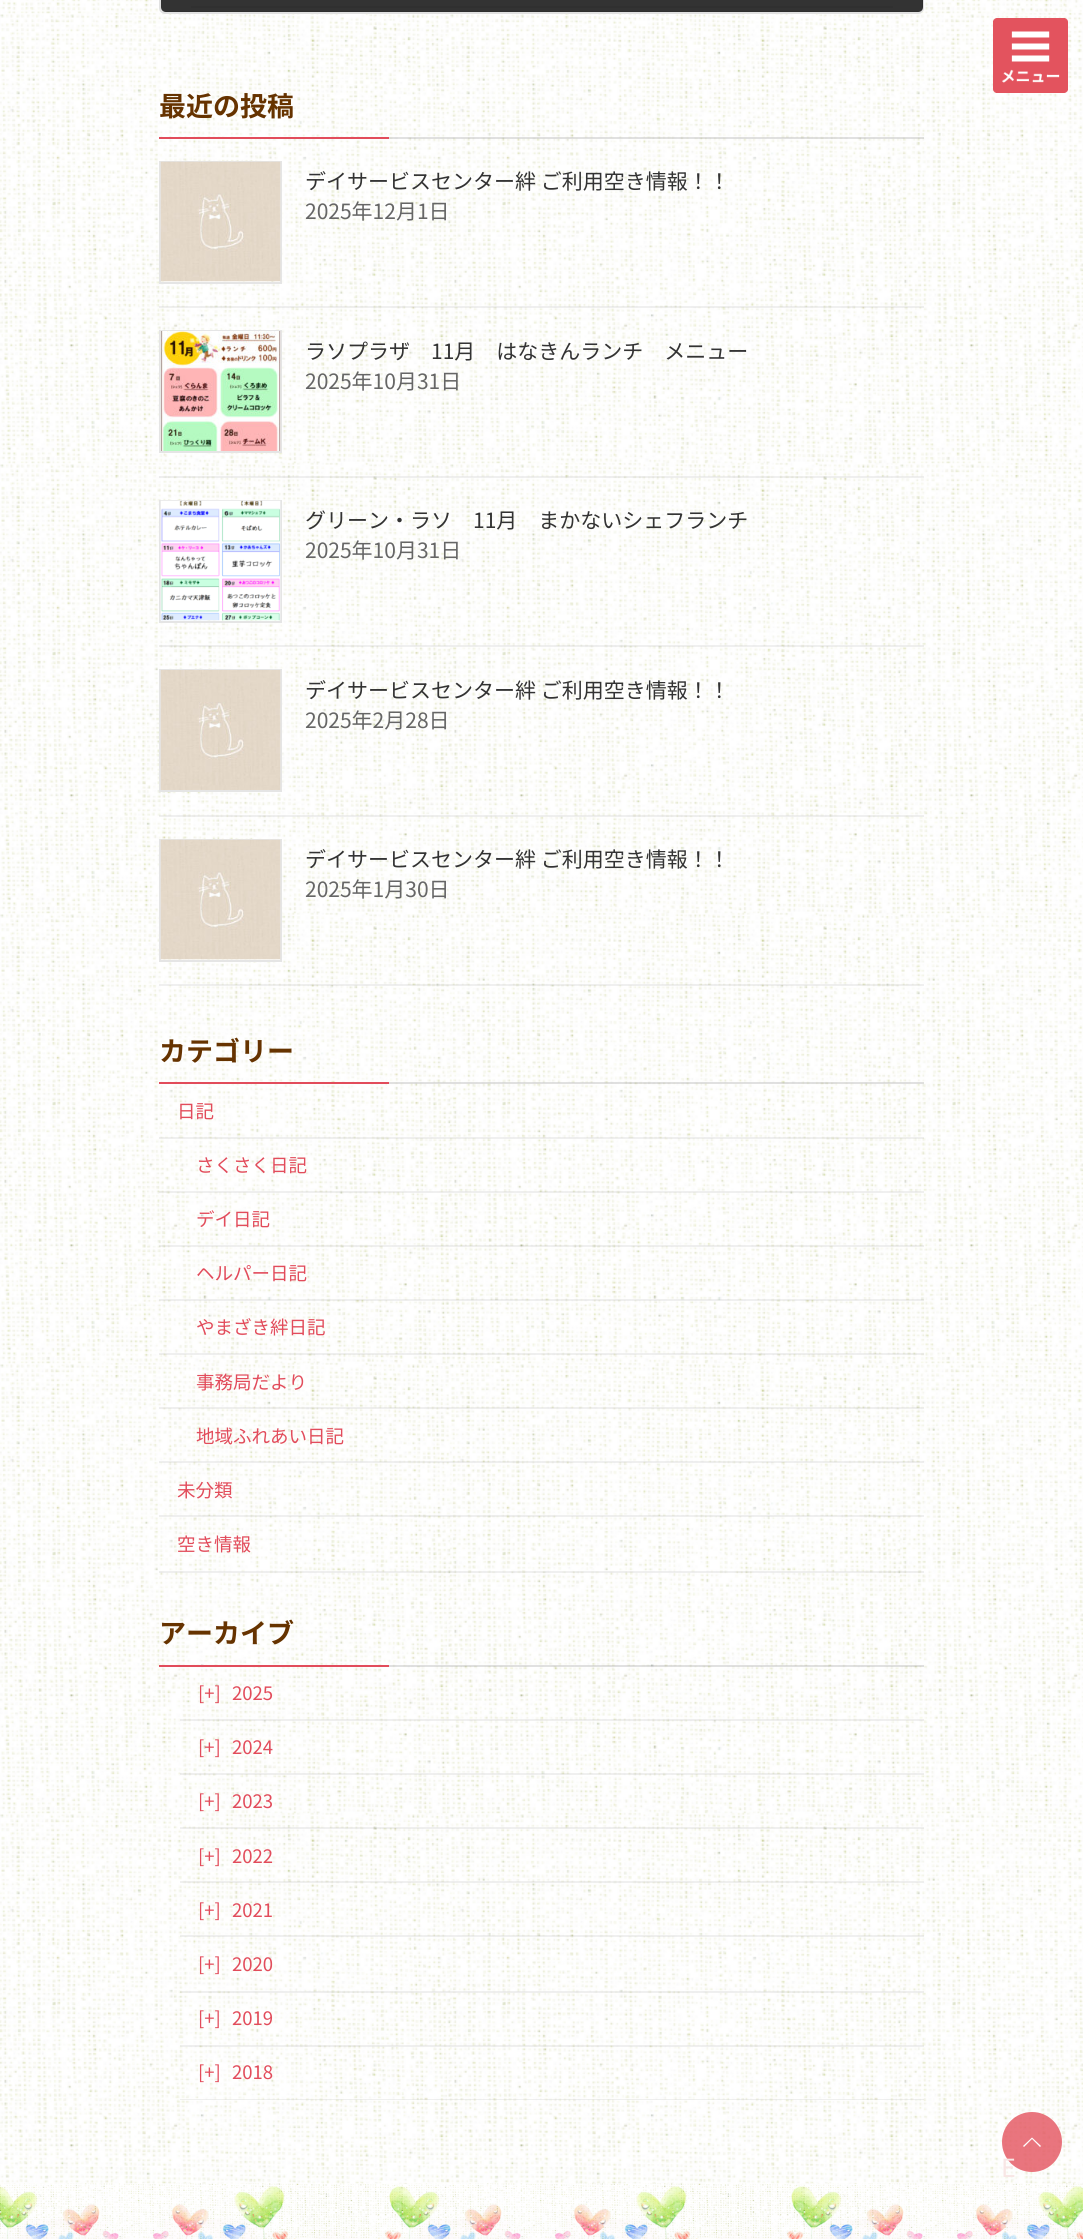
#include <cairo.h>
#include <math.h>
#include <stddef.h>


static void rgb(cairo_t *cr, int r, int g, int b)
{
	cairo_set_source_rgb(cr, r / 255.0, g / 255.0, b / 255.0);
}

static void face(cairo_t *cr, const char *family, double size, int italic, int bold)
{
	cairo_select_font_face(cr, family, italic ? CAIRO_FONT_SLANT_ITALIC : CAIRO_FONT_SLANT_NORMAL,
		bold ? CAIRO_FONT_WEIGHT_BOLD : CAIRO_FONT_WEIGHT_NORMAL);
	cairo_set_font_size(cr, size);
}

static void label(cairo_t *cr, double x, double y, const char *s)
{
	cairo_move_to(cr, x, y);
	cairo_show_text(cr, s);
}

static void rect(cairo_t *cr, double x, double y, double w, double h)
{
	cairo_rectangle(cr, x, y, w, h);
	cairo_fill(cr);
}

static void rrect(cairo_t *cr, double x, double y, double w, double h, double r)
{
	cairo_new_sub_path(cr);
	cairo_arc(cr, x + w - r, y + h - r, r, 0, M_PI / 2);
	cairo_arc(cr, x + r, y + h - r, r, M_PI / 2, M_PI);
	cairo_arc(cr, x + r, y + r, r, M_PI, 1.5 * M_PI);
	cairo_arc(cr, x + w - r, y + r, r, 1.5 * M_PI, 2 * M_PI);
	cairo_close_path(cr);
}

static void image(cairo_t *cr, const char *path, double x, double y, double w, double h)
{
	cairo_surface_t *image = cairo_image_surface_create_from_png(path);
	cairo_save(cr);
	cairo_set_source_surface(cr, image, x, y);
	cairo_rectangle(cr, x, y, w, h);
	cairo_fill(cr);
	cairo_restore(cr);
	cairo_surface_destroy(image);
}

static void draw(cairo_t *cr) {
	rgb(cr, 255, 255, 255);
	cairo_paint(cr);
	image(cr, "image0.png", 0, 0, 1083, 2184);
	image(cr, "image1.png", 993, 18, 75, 75);
	rgb(cr, 255, 255, 255);
	rrect(cr, 159, -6, 765, 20, 6);
	cairo_fill(cr);
	rrect(cr, 160, -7, 763, 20, 5);
	cairo_set_source_rgba(cr, 0, 0, 0, 0.12);
	cairo_stroke(cr);
	cairo_save(cr);
	rrect(cr, 161, -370, 762, 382, 5);
	cairo_clip(cr);
	rgb(cr, 229, 229, 229);
	rect(cr, 161, 11, 762, 1);
	cairo_restore(cr);
	cairo_set_source_rgba(cr, 0, 0, 0, 0.8);
	cairo_new_path(cr);
	cairo_move_to(cr, 161, -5);
	cairo_line_to(cr, 923, -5);
	cairo_line_to(cr, 923, 7);
	cairo_curve_to(cr, 923, 10, 921, 12, 918, 12);
	cairo_line_to(cr, 166, 12);
	cairo_curve_to(cr, 163, 12, 161, 10, 161, 7);
	cairo_close_path(cr);
	cairo_fill(cr);
	rgb(cr, 48, 48, 48);
	rect(cr, 191, 6, 702, 2);
	cairo_set_source_rgba(cr, 0, 0, 0, 0.12);
	rect(cr, 389, 137, 535, 2);
	face(cr, "Noto Sans JP", 27, 0, 1);
	rgb(cr, 102, 51, 0);
	label(cr, 159, 116, "最近の投稿");
	rgb(cr, 226, 76, 91);
	rect(cr, 159, 137, 230, 2);
	cairo_set_source_rgba(cr, 0, 0, 0, 0.06);
	rect(cr, 159, 306, 765, 2);
	cairo_rectangle(cr, 160, 162, 121, 121);
	rgb(cr, 229, 229, 229);
	cairo_stroke(cr);
	image(cr, "image2.png", 160, 161, 121, 121);
	face(cr, "Noto Sans JP", 21, 0, 0);
	rgb(cr, 51, 51, 51);
	label(cr, 305, 189, "デイサービスセンター絆 ご利用空き情報！！");
	rgb(cr, 102, 102, 102);
	label(cr, 305, 219, "2025年12月1日");
	cairo_set_source_rgba(cr, 0, 0, 0, 0.06);
	rect(cr, 159, 476, 765, 2);
	cairo_rectangle(cr, 160, 331, 121, 121);
	rgb(cr, 229, 229, 229);
	cairo_stroke(cr);
	image(cr, "image3.png", 160, 331, 121, 120);
	rgb(cr, 51, 51, 51);
	label(cr, 305, 359, "ラソプラザ　11月　はなきんランチ　メニュー");
	rgb(cr, 102, 102, 102);
	label(cr, 305, 389, "2025年10月31日");
	cairo_set_source_rgba(cr, 0, 0, 0, 0.06);
	rect(cr, 159, 645, 765, 2);
	cairo_rectangle(cr, 160, 501, 121, 121);
	rgb(cr, 229, 229, 229);
	cairo_stroke(cr);
	image(cr, "image4.png", 160, 500, 121, 121);
	rgb(cr, 51, 51, 51);
	label(cr, 305, 528, "グリーン・ラソ　11月　まかないシェフランチ");
	rgb(cr, 102, 102, 102);
	label(cr, 305, 558, "2025年10月31日");
	cairo_set_source_rgba(cr, 0, 0, 0, 0.06);
	rect(cr, 159, 815, 765, 2);
	cairo_rectangle(cr, 160, 670, 121, 121);
	rgb(cr, 229, 229, 229);
	cairo_stroke(cr);
	image(cr, "image5.png", 160, 670, 121, 120);
	rgb(cr, 51, 51, 51);
	label(cr, 305, 698, "デイサービスセンター絆 ご利用空き情報！！");
	rgb(cr, 102, 102, 102);
	label(cr, 305, 728, "2025年2月28日");
	cairo_set_source_rgba(cr, 0, 0, 0, 0.06);
	rect(cr, 159, 984, 765, 2);
	cairo_rectangle(cr, 160, 840, 121, 121);
	rgb(cr, 229, 229, 229);
	cairo_stroke(cr);
	image(cr, "image6.png", 160, 839, 121, 121);
	rgb(cr, 51, 51, 51);
	label(cr, 305, 867, "デイサービスセンター絆 ご利用空き情報！！");
	rgb(cr, 102, 102, 102);
	label(cr, 305, 897, "2025年1月30日");
	cairo_set_source_rgba(cr, 0, 0, 0, 0.12);
	rect(cr, 389, 1082, 535, 2);
	face(cr, "Noto Sans JP", 27, 0, 1);
	rgb(cr, 102, 51, 0);
	label(cr, 159, 1061, "カテゴリー");
	rgb(cr, 226, 76, 91);
	rect(cr, 159, 1082, 230, 2);
	cairo_set_source_rgba(cr, 0, 0, 0, 0.06);
	rect(cr, 159, 1137, 765, 2);
	face(cr, "Noto Sans JP", 18.5, 0, 0);
	rgb(cr, 226, 76, 91);
	label(cr, 177, 1118, "日記");
	cairo_set_source_rgba(cr, 0, 0, 0, 0.06);
	rect(cr, 159, 1191, 765, 2);
	rgb(cr, 226, 76, 91);
	label(cr, 196, 1172, "さくさく日記");
	cairo_set_source_rgba(cr, 0, 0, 0, 0.06);
	rect(cr, 159, 1245, 765, 2);
	rgb(cr, 226, 76, 91);
	label(cr, 196, 1226, "デイ日記");
	cairo_set_source_rgba(cr, 0, 0, 0, 0.06);
	rect(cr, 159, 1299, 765, 2);
	rgb(cr, 226, 76, 91);
	label(cr, 196, 1280, "ヘルパー日記");
	cairo_set_source_rgba(cr, 0, 0, 0, 0.06);
	rect(cr, 159, 1353, 765, 2);
	rgb(cr, 226, 76, 91);
	label(cr, 196, 1334, "やまざき絆日記");
	cairo_set_source_rgba(cr, 0, 0, 0, 0.06);
	rect(cr, 159, 1407, 765, 2);
	rgb(cr, 226, 76, 91);
	label(cr, 196, 1389, "事務局だより");
	cairo_set_source_rgba(cr, 0, 0, 0, 0.06);
	rect(cr, 159, 1461, 765, 2);
	rgb(cr, 226, 76, 91);
	label(cr, 196, 1443, "地域ふれあい日記");
	cairo_set_source_rgba(cr, 0, 0, 0, 0.06);
	rect(cr, 159, 1515, 765, 2);
	rgb(cr, 226, 76, 91);
	label(cr, 177, 1497, "未分類");
	cairo_set_source_rgba(cr, 0, 0, 0, 0.06);
	rect(cr, 159, 1571, 765, 2);
	rgb(cr, 226, 76, 91);
	label(cr, 177, 1551, "空き情報");
	cairo_set_source_rgba(cr, 0, 0, 0, 0.12);
	rect(cr, 389, 1665, 535, 2);
	face(cr, "Noto Sans JP", 27, 0, 1);
	rgb(cr, 102, 51, 0);
	label(cr, 159, 1643, "アーカイブ");
	rgb(cr, 226, 76, 91);
	rect(cr, 159, 1665, 230, 2);
	cairo_set_source_rgba(cr, 0, 0, 0, 0.06);
	rect(cr, 180, 1719, 744, 2);
	face(cr, "Noto Sans JP", 18.5, 0, 0);
	rgb(cr, 226, 76, 91);
	label(cr, 198, 1700, "[+]");
	label(cr, 232, 1700, "2025");
	cairo_set_source_rgba(cr, 0, 0, 0, 0.06);
	rect(cr, 180, 1773, 744, 2);
	rgb(cr, 226, 76, 91);
	label(cr, 198, 1754, "[+]");
	label(cr, 232, 1754, "2024");
	cairo_set_source_rgba(cr, 0, 0, 0, 0.06);
	rect(cr, 180, 1827, 744, 2);
	rgb(cr, 226, 76, 91);
	label(cr, 198, 1808, "[+]");
	label(cr, 232, 1808, "2023");
	cairo_set_source_rgba(cr, 0, 0, 0, 0.06);
	rect(cr, 180, 1881, 744, 2);
	rgb(cr, 226, 76, 91);
	label(cr, 198, 1863, "[+]");
	label(cr, 232, 1863, "2022");
	cairo_set_source_rgba(cr, 0, 0, 0, 0.06);
	rect(cr, 180, 1935, 744, 2);
	rgb(cr, 226, 76, 91);
	label(cr, 198, 1917, "[+]");
	label(cr, 232, 1917, "2021");
	cairo_set_source_rgba(cr, 0, 0, 0, 0.06);
	rect(cr, 180, 1991, 744, 2);
	rgb(cr, 226, 76, 91);
	label(cr, 198, 1971, "[+]");
	label(cr, 232, 1971, "2020");
	cairo_set_source_rgba(cr, 0, 0, 0, 0.06);
	rect(cr, 180, 2045, 744, 2);
	rgb(cr, 226, 76, 91);
	label(cr, 198, 2025, "[+]");
	label(cr, 232, 2025, "2019");
	cairo_set_source_rgba(cr, 0, 0, 0, 0.06);
	rect(cr, 180, 2099, 744, 1);
	rgb(cr, 226, 76, 91);
	label(cr, 198, 2079, "[+]");
	label(cr, 232, 2079, "2018");
	cairo_set_source_rgba(cr, 0.89, 0.325, 0.369, 0.8);
	cairo_new_path(cr);
	cairo_arc(cr, 1032, 2142, 30, 0, 2 * M_PI);
	cairo_fill(cr);
	rgb(cr, 255, 255, 255);
	cairo_new_path(cr);
	cairo_move_to(cr, 1041, 2146);
	cairo_line_to(cr, 1040, 2147);
	cairo_line_to(cr, 1032, 2139);
	cairo_line_to(cr, 1024, 2147);
	cairo_line_to(cr, 1023, 2146);
	cairo_line_to(cr, 1032, 2137.5);
	cairo_close_path(cr);
	cairo_fill(cr);
	face(cr, "Noto Sans JP", 25, 0, 0);
	rgb(cr, 248, 230, 229);
	label(cr, 1001, 2177, "E");
	image(cr, "image7.png", 0, 2183, 1083, 56);
}

int main(void) {
	cairo_surface_t *surface = cairo_image_surface_create(CAIRO_FORMAT_RGB24, 1083, 2239);
	cairo_t *cr = cairo_create(surface);
	cairo_font_options_t *options = cairo_font_options_create();
	cairo_font_options_set_hint_metrics(options, CAIRO_HINT_METRICS_OFF);
	cairo_font_options_set_hint_style(options, CAIRO_HINT_STYLE_NONE);
	cairo_set_font_options(cr, options);
	cairo_set_miter_limit(cr, 4);
	draw(cr);
	cairo_surface_write_to_png(surface, "render.png");
	cairo_font_options_destroy(options);
	cairo_destroy(cr);
	cairo_surface_destroy(surface);
	return 0;
}
